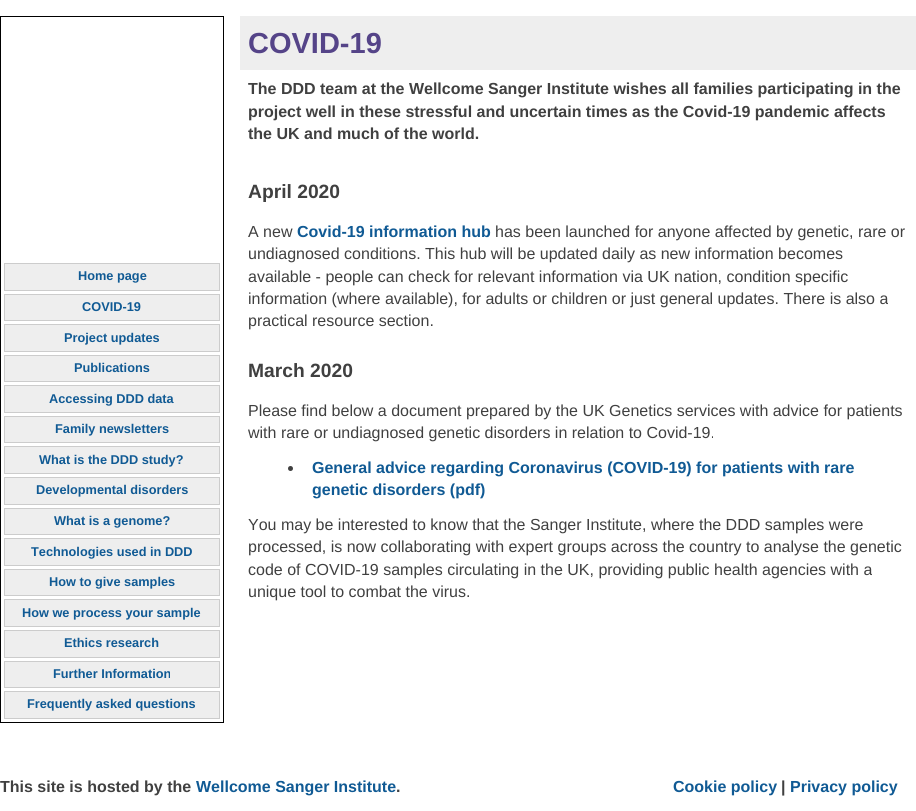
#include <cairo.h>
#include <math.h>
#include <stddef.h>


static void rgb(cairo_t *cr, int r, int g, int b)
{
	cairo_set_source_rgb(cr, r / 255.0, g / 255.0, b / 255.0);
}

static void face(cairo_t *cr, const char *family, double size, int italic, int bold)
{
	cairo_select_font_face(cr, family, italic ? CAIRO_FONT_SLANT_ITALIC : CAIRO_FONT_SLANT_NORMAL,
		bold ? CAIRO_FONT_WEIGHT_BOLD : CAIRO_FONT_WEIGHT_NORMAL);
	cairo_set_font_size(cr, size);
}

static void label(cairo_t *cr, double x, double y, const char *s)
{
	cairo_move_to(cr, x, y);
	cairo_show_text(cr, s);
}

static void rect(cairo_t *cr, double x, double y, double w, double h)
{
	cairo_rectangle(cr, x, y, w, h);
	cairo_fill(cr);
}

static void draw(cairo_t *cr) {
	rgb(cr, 255, 255, 255);
	cairo_paint(cr);
	cairo_rectangle(cr, 0.5, 16.5, 223, 706);
	rgb(cr, 0, 0, 0);
	cairo_set_line_width(cr, 1);
	cairo_stroke(cr);
	rgb(cr, 238, 238, 238);
	cairo_rectangle(cr, 4.5, 263.5, 215, 27);
	cairo_fill_preserve(cr);
	rgb(cr, 204, 204, 204);
	cairo_stroke(cr);
	face(cr, "Liberation Sans", 12.75, 0, 1);
	rgb(cr, 16, 90, 148);
	label(cr, 78, 280, "Home page");
	rgb(cr, 238, 238, 238);
	cairo_rectangle(cr, 4.5, 294.5, 215, 26);
	cairo_fill_preserve(cr);
	rgb(cr, 204, 204, 204);
	cairo_stroke(cr);
	rgb(cr, 16, 90, 148);
	label(cr, 82, 311, "COVID-19");
	rgb(cr, 238, 238, 238);
	cairo_rectangle(cr, 4.5, 324.5, 215, 27);
	cairo_fill_preserve(cr);
	rgb(cr, 204, 204, 204);
	cairo_stroke(cr);
	rgb(cr, 16, 90, 148);
	label(cr, 64, 342, "Project updates");
	rgb(cr, 238, 238, 238);
	cairo_rectangle(cr, 4.5, 355.5, 215, 26);
	cairo_fill_preserve(cr);
	rgb(cr, 204, 204, 204);
	cairo_stroke(cr);
	rgb(cr, 16, 90, 148);
	label(cr, 74, 372, "Publications");
	rgb(cr, 238, 238, 238);
	cairo_rectangle(cr, 4.5, 385.5, 215, 27);
	cairo_fill_preserve(cr);
	rgb(cr, 204, 204, 204);
	cairo_stroke(cr);
	rgb(cr, 16, 90, 148);
	label(cr, 49, 403, "Accessing DDD data");
	rgb(cr, 238, 238, 238);
	cairo_rectangle(cr, 4.5, 416.5, 215, 26);
	cairo_fill_preserve(cr);
	rgb(cr, 204, 204, 204);
	cairo_stroke(cr);
	rgb(cr, 16, 90, 148);
	label(cr, 55, 433, "Family newsletters");
	rgb(cr, 238, 238, 238);
	cairo_rectangle(cr, 4.5, 446.5, 215, 27);
	cairo_fill_preserve(cr);
	rgb(cr, 204, 204, 204);
	cairo_stroke(cr);
	rgb(cr, 16, 90, 148);
	label(cr, 39, 464, "What is the DDD study?");
	rgb(cr, 238, 238, 238);
	cairo_rectangle(cr, 4.5, 477.5, 215, 27);
	cairo_fill_preserve(cr);
	rgb(cr, 204, 204, 204);
	cairo_stroke(cr);
	rgb(cr, 16, 90, 148);
	label(cr, 36, 494, "Developmental disorders");
	rgb(cr, 238, 238, 238);
	cairo_rectangle(cr, 4.5, 508.5, 215, 26);
	cairo_fill_preserve(cr);
	rgb(cr, 204, 204, 204);
	cairo_stroke(cr);
	rgb(cr, 16, 90, 148);
	label(cr, 54, 525, "What is a genome?");
	rgb(cr, 238, 238, 238);
	cairo_rectangle(cr, 4.5, 538.5, 215, 27);
	cairo_fill_preserve(cr);
	rgb(cr, 204, 204, 204);
	cairo_stroke(cr);
	rgb(cr, 16, 90, 148);
	label(cr, 31, 556, "Technologies used in DDD");
	rgb(cr, 238, 238, 238);
	cairo_rectangle(cr, 4.5, 569.5, 215, 26);
	cairo_fill_preserve(cr);
	rgb(cr, 204, 204, 204);
	cairo_stroke(cr);
	rgb(cr, 16, 90, 148);
	label(cr, 49, 586, "How to give samples");
	rgb(cr, 238, 238, 238);
	cairo_rectangle(cr, 4.5, 599.5, 215, 27);
	cairo_fill_preserve(cr);
	rgb(cr, 204, 204, 204);
	cairo_stroke(cr);
	rgb(cr, 16, 90, 148);
	label(cr, 22, 617, "How we process your sample");
	rgb(cr, 238, 238, 238);
	cairo_rectangle(cr, 4.5, 630.5, 215, 27);
	cairo_fill_preserve(cr);
	rgb(cr, 204, 204, 204);
	cairo_stroke(cr);
	rgb(cr, 16, 90, 148);
	label(cr, 64, 647, "Ethics research");
	rgb(cr, 238, 238, 238);
	cairo_rectangle(cr, 4.5, 661.5, 215, 26);
	cairo_fill_preserve(cr);
	rgb(cr, 204, 204, 204);
	cairo_stroke(cr);
	rgb(cr, 16, 90, 148);
	label(cr, 53, 678, "Further Information");
	rgb(cr, 238, 238, 238);
	cairo_rectangle(cr, 4.5, 691.5, 215, 27);
	cairo_fill_preserve(cr);
	rgb(cr, 204, 204, 204);
	cairo_stroke(cr);
	rgb(cr, 16, 90, 148);
	label(cr, 27, 708, "Frequently asked questions");
	rgb(cr, 238, 238, 238);
	rect(cr, 240, 16, 676, 54);
	face(cr, "Liberation Sans", 29, 0, 1);
	rgb(cr, 85, 68, 136);
	label(cr, 248, 53, "COVID-19");
	face(cr, "Liberation Sans", 16, 0, 1);
	rgb(cr, 64, 64, 64);
	label(cr, 248, 94, "The DDD team at the Wellcome Sanger Institute wishes all families participating in the");
	label(cr, 248, 117, "project well in these stressful and uncertain times as the Covid-19 pandemic affects");
	label(cr, 248, 139, "the UK and much of the world.");
	face(cr, "Liberation Sans", 19.25, 0, 1);
	label(cr, 248, 198, "April 2020");
	face(cr, "Liberation Sans", 16, 0, 0);
	label(cr, 248, 237, "A new");
	face(cr, "Liberation Sans", 16, 0, 1);
	rgb(cr, 16, 90, 148);
	label(cr, 297, 237, "Covid-19 information hub");
	face(cr, "Liberation Sans", 16, 0, 0);
	rgb(cr, 64, 64, 64);
	label(cr, 495, 237, "has been launched for anyone affected by genetic, rare or");
	label(cr, 248, 259, "undiagnosed conditions. This hub will be updated daily as new information becomes");
	label(cr, 248, 282, "available - people can check for relevant information via UK nation, condition specific");
	label(cr, 248, 304, "information (where available), for adults or children or just general updates. There is also a");
	label(cr, 248, 326, "practical resource section.");
	face(cr, "Liberation Sans", 19.25, 0, 1);
	label(cr, 248, 377, "March 2020");
	face(cr, "Liberation Sans", 16, 0, 0);
	label(cr, 248, 416, "Please find below a document prepared by the UK Genetics services with advice for patients");
	label(cr, 248, 438, "with rare or undiagnosed genetic disorders in relation to Covid-19.");
	cairo_new_path(cr);
	cairo_arc(cr, 290.5, 468.5, 2.5, 0, 2 * M_PI);
	cairo_fill(cr);
	face(cr, "Liberation Sans", 16, 0, 1);
	rgb(cr, 16, 90, 148);
	label(cr, 312, 473, "General advice regarding Coronavirus (COVID-19) for patients with rare");
	label(cr, 312, 495, "genetic disorders (pdf)");
	face(cr, "Liberation Sans", 16, 0, 0);
	rgb(cr, 64, 64, 64);
	label(cr, 248, 530, "You may be interested to know that the Sanger Institute, where the DDD samples were");
	label(cr, 248, 552, "processed, is now collaborating with expert groups across the country to analyse the genetic");
	label(cr, 248, 575, "code of COVID-19 samples circulating in the UK, providing public health agencies with a");
	label(cr, 248, 597, "unique tool to combat the virus.");
	face(cr, "Liberation Sans", 16, 0, 1);
	label(cr, 0, 792, "This site is hosted by the");
	rgb(cr, 16, 90, 148);
	label(cr, 196, 792, "Wellcome Sanger Institute");
	rgb(cr, 64, 64, 64);
	label(cr, 396, 792, ".");
	rgb(cr, 16, 90, 148);
	label(cr, 673, 792, "Cookie policy");
	rgb(cr, 64, 64, 64);
	label(cr, 781, 792, "|");
	rgb(cr, 16, 90, 148);
	label(cr, 790, 792, "Privacy policy");
}

int main(void) {
	cairo_surface_t *surface = cairo_image_surface_create(CAIRO_FORMAT_RGB24, 916, 811);
	cairo_t *cr = cairo_create(surface);
	cairo_font_options_t *options = cairo_font_options_create();
	cairo_font_options_set_hint_metrics(options, CAIRO_HINT_METRICS_OFF);
	cairo_font_options_set_hint_style(options, CAIRO_HINT_STYLE_NONE);
	cairo_set_font_options(cr, options);
	cairo_set_miter_limit(cr, 4);
	draw(cr);
	cairo_surface_write_to_png(surface, "render.png");
	cairo_font_options_destroy(options);
	cairo_destroy(cr);
	cairo_surface_destroy(surface);
	return 0;
}
